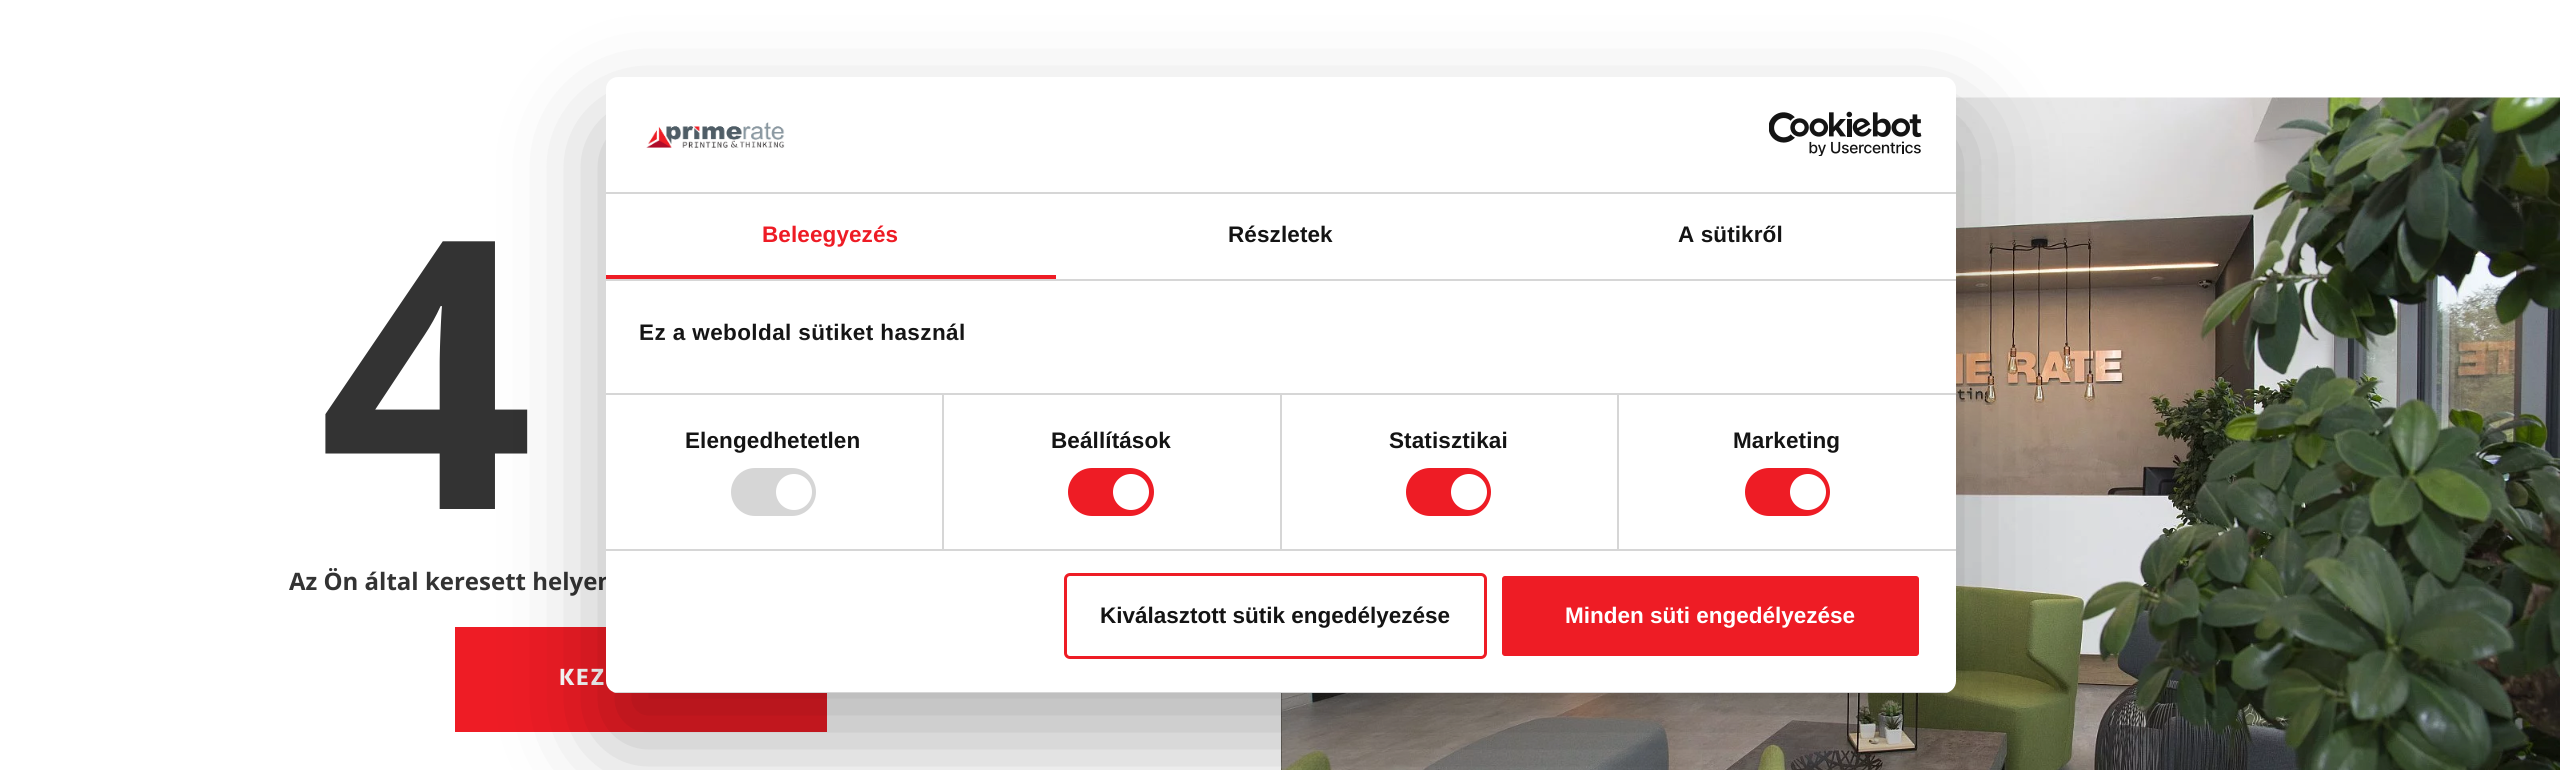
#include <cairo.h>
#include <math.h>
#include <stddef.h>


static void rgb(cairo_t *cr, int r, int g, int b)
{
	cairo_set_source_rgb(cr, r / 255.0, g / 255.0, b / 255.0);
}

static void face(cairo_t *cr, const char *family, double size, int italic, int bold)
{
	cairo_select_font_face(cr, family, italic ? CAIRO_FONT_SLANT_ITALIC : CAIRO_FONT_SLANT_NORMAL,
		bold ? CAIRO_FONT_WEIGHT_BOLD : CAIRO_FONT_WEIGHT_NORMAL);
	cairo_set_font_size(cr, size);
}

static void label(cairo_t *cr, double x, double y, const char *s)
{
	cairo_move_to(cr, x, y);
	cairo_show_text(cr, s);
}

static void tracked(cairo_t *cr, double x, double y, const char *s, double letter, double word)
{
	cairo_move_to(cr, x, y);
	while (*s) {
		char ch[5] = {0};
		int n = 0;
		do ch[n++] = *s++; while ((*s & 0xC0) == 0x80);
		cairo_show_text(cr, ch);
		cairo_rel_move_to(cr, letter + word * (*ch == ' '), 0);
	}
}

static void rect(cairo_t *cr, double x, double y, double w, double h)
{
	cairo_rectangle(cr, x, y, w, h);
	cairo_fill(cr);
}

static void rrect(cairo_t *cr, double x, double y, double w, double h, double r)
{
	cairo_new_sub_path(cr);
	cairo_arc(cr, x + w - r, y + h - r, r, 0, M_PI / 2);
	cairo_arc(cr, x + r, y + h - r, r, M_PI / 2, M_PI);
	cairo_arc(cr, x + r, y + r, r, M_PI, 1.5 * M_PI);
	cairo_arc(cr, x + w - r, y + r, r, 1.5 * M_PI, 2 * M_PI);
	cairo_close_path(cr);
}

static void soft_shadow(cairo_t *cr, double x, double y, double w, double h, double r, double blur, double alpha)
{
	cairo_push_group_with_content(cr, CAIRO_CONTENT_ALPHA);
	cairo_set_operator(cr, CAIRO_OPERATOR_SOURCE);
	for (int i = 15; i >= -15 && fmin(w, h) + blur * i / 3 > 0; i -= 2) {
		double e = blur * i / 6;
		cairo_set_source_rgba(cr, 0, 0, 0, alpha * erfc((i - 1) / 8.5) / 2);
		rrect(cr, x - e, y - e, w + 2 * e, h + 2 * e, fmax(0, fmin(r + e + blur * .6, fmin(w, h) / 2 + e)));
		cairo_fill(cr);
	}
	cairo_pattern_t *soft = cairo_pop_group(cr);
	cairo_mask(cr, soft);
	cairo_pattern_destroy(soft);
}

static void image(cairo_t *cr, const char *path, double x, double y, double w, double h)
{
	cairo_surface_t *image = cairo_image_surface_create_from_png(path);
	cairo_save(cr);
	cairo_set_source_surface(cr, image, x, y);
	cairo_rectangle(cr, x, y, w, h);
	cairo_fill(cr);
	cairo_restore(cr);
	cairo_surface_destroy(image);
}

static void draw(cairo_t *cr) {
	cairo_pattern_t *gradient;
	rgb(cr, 255, 255, 255);
	cairo_paint(cr);
	face(cr, "Open Sans", 375, 0, 1);
	rgb(cr, 51, 51, 51);
	label(cr, 319, 509, "4");
	face(cr, "Open Sans", 24, 0, 1);
	label(cr, 289, 590, "Az Ön által keresett helyen");
	rgb(cr, 238, 28, 37);
	rect(cr, 455, 627, 372, 105);
	face(cr, "Hind", 24, 0, 1);
	rgb(cr, 255, 255, 255);
	tracked(cr, 559, 685, "KEZ", 1, 0);
	image(cr, "image0.png", 1281, 97, 1279, 673);
	rgb(cr, 0, 0, 0);
	soft_shadow(cr, 606, 125, 1350, 616, 12, 51, 0.3);
	rgb(cr, 255, 255, 255);
	rrect(cr, 606, 77, 1350, 616, 12);
	cairo_fill(cr);
	rgb(cr, 214, 214, 214);
	rect(cr, 606, 192, 1350, 2);
	image(cr, "image1.png", 646, 122, 139, 26);
	image(cr, "image2.png", 1769, 111, 153, 45);
	rect(cr, 606, 279, 1350, 2);
	rgb(cr, 238, 28, 37);
	rect(cr, 606, 275, 450, 4);
	face(cr, "Liberation Sans", 22.5, 0, 1);
	tracked(cr, 762, 242, "Beleegyezés", 0.1, 0);
	rgb(cr, 20, 20, 20);
	tracked(cr, 1228, 242, "Részletek", 0.1, 0);
	tracked(cr, 1678, 242, "A sütikről", 0.1, 0);
	rgb(cr, 214, 214, 214);
	rect(cr, 606, 393, 1350, 2);
	rgb(cr, 20, 20, 20);
	tracked(cr, 639, 340, "Ez a weboldal sütiket használ", 0.4, 0);
	gradient = cairo_pattern_create_linear(1265, 394, 1265, 337);
	cairo_pattern_add_color_stop_rgba(gradient, 0, 1, 1, 1, 1);
	cairo_pattern_add_color_stop_rgba(gradient, 0.5, 1, 1, 1, 0.8);
	cairo_pattern_add_color_stop_rgba(gradient, 1, 1, 1, 1, 0);
	cairo_set_source(cr, gradient);
	cairo_pattern_destroy(gradient);
	rect(cr, 640, 338, 323, 3);
	rgb(cr, 214, 214, 214);
	rect(cr, 606, 549, 1350, 2);
	rect(cr, 942, 395, 2, 154);
	rgb(cr, 20, 20, 20);
	tracked(cr, 685, 448, "Elengedhetetlen", 0.1, 0);
	rgb(cr, 214, 214, 214);
	rrect(cr, 731, 468, 85, 48, 24);
	cairo_fill(cr);
	rgb(cr, 255, 255, 255);
	cairo_arc(cr, 794, 492, 18, 0, 2 * M_PI);
	cairo_fill(cr);
	rgb(cr, 214, 214, 214);
	rect(cr, 1280, 395, 2, 154);
	rgb(cr, 20, 20, 20);
	tracked(cr, 1051, 448, "Beállítások", 0.1, 0);
	rgb(cr, 238, 28, 37);
	rrect(cr, 1068, 468, 86, 48, 24);
	cairo_fill(cr);
	rgb(cr, 255, 255, 255);
	cairo_arc(cr, 1131, 492, 18, 0, 2 * M_PI);
	cairo_fill(cr);
	rgb(cr, 214, 214, 214);
	rect(cr, 1617, 395, 2, 154);
	rgb(cr, 20, 20, 20);
	tracked(cr, 1389, 448, "Statisztikai", 0.1, 0);
	rgb(cr, 238, 28, 37);
	rrect(cr, 1406, 468, 85, 48, 24);
	cairo_fill(cr);
	rgb(cr, 255, 255, 255);
	cairo_arc(cr, 1469, 492, 18, 0, 2 * M_PI);
	cairo_fill(cr);
	rgb(cr, 20, 20, 20);
	tracked(cr, 1733, 448, "Marketing", 0.1, 0);
	rgb(cr, 238, 28, 37);
	rrect(cr, 1745, 468, 85, 48, 24);
	cairo_fill(cr);
	rgb(cr, 255, 255, 255);
	cairo_arc(cr, 1808, 492, 18, 0, 2 * M_PI);
	cairo_fill(cr);
	cairo_save(cr);
	rrect(cr, 606, 77, 1350, 616, 12);
	cairo_clip(cr);
	rgb(cr, 214, 214, 214);
	rect(cr, 606, 692, 1350, 1);
	cairo_restore(cr);
	rrect(cr, 1065.5, 574.5, 420, 83, 4.5);
	rgb(cr, 238, 28, 37);
	cairo_set_line_width(cr, 3);
	cairo_stroke(cr);
	rgb(cr, 20, 20, 20);
	label(cr, 1100, 623, "Kiválasztott sütik engedélyezése");
	rgb(cr, 238, 28, 37);
	rrect(cr, 1500.5, 574.5, 420, 83, 4.5);
	cairo_fill_preserve(cr);
	rgb(cr, 255, 255, 255);
	cairo_stroke(cr);
	label(cr, 1565, 623, "Minden süti engedélyezése");
}

int main(void) {
	cairo_surface_t *surface = cairo_image_surface_create(CAIRO_FORMAT_RGB24, 2560, 770);
	cairo_t *cr = cairo_create(surface);
	cairo_font_options_t *options = cairo_font_options_create();
	cairo_font_options_set_hint_metrics(options, CAIRO_HINT_METRICS_OFF);
	cairo_font_options_set_hint_style(options, CAIRO_HINT_STYLE_NONE);
	cairo_set_font_options(cr, options);
	cairo_set_miter_limit(cr, 4);
	draw(cr);
	cairo_surface_write_to_png(surface, "render.png");
	cairo_font_options_destroy(options);
	cairo_destroy(cr);
	cairo_surface_destroy(surface);
	return 0;
}
